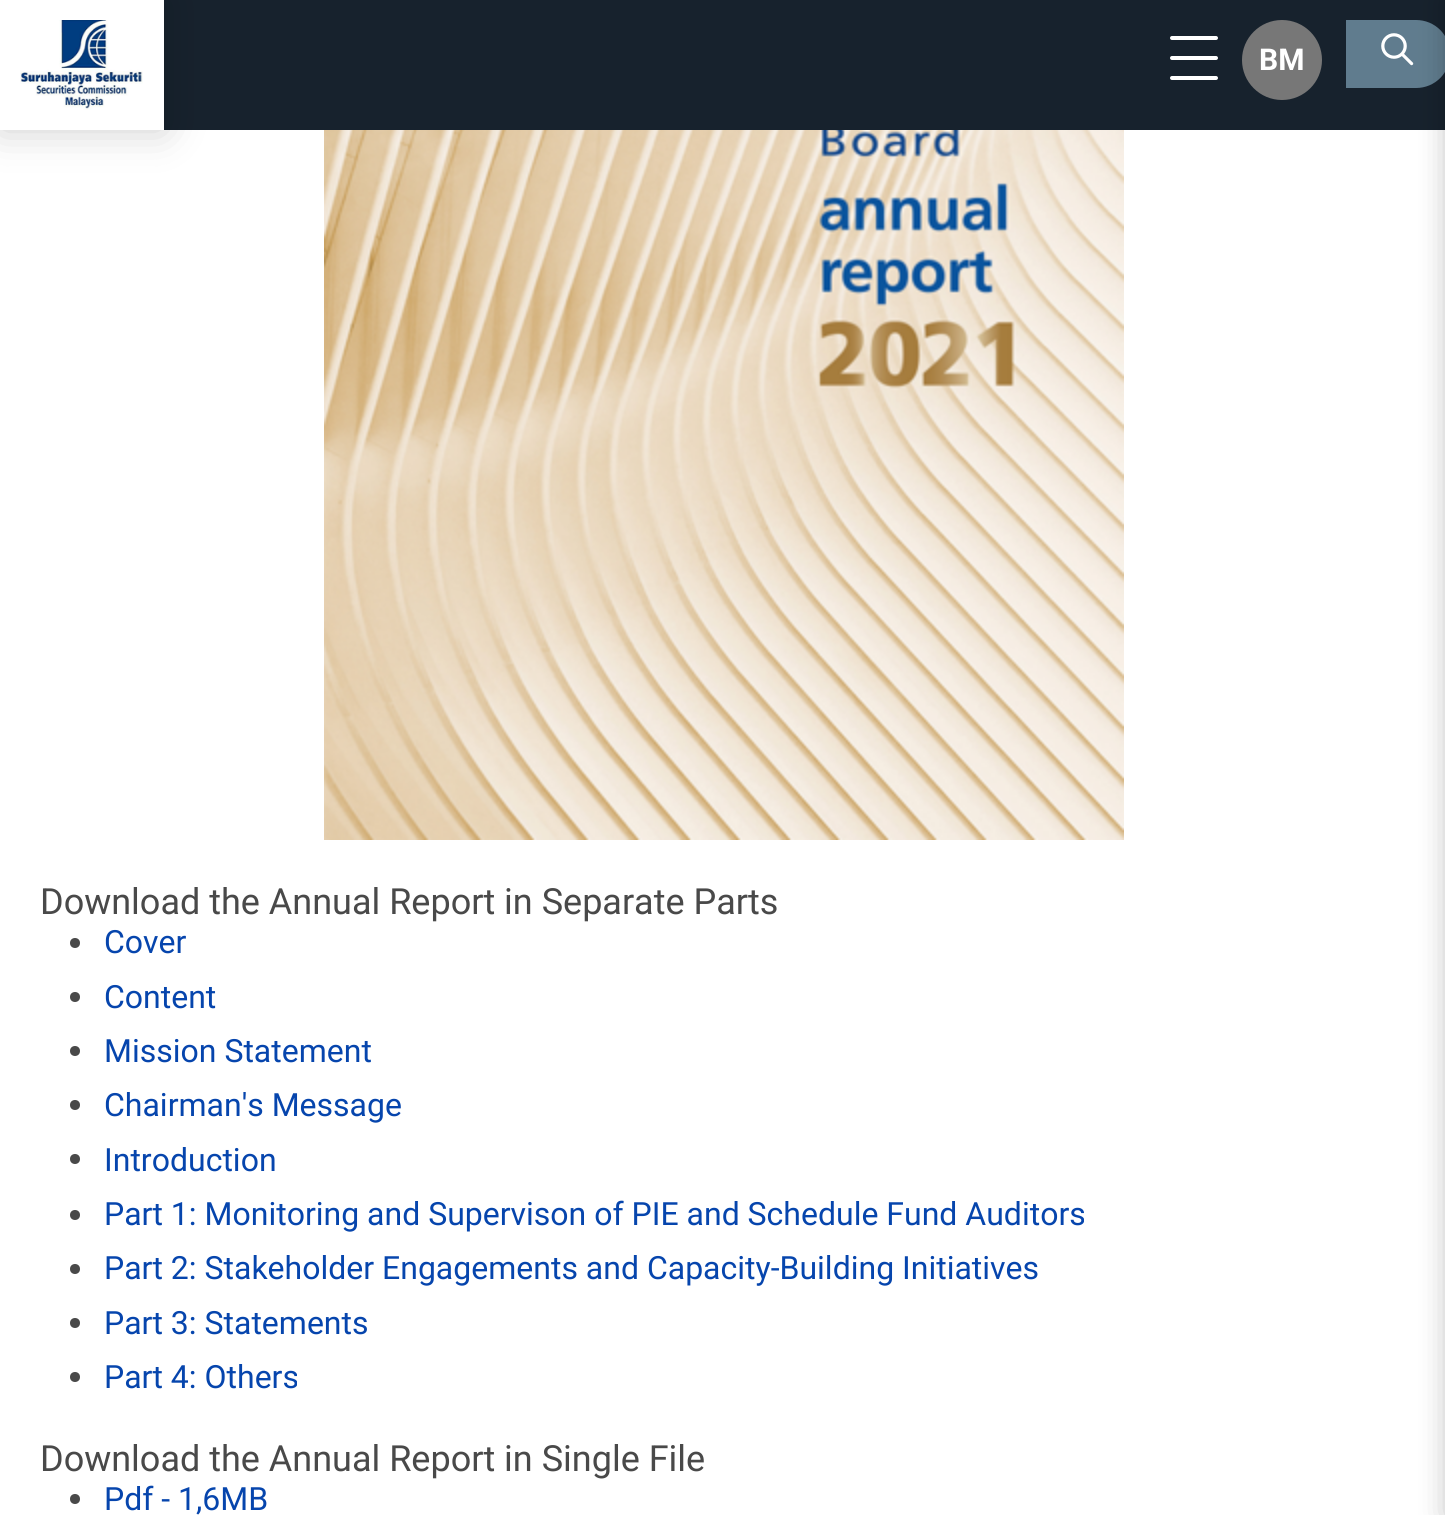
#include <cairo.h>
#include <math.h>
#include <stddef.h>


static void rgb(cairo_t *cr, int r, int g, int b)
{
	cairo_set_source_rgb(cr, r / 255.0, g / 255.0, b / 255.0);
}

static void face(cairo_t *cr, const char *family, double size, int italic, int bold)
{
	cairo_select_font_face(cr, family, italic ? CAIRO_FONT_SLANT_ITALIC : CAIRO_FONT_SLANT_NORMAL,
		bold ? CAIRO_FONT_WEIGHT_BOLD : CAIRO_FONT_WEIGHT_NORMAL);
	cairo_set_font_size(cr, size);
}

static void label(cairo_t *cr, double x, double y, const char *s)
{
	cairo_move_to(cr, x, y);
	cairo_show_text(cr, s);
}

static void rect(cairo_t *cr, double x, double y, double w, double h)
{
	cairo_rectangle(cr, x, y, w, h);
	cairo_fill(cr);
}

static void rrect(cairo_t *cr, double x, double y, double w, double h, double r)
{
	cairo_new_sub_path(cr);
	cairo_arc(cr, x + w - r, y + h - r, r, 0, M_PI / 2);
	cairo_arc(cr, x + r, y + h - r, r, M_PI / 2, M_PI);
	cairo_arc(cr, x + r, y + r, r, M_PI, 1.5 * M_PI);
	cairo_arc(cr, x + w - r, y + r, r, 1.5 * M_PI, 2 * M_PI);
	cairo_close_path(cr);
}

static void soft_shadow(cairo_t *cr, double x, double y, double w, double h, double r, double blur, double alpha)
{
	cairo_push_group_with_content(cr, CAIRO_CONTENT_ALPHA);
	cairo_set_operator(cr, CAIRO_OPERATOR_SOURCE);
	for (int i = 15; i >= -15 && fmin(w, h) + blur * i / 3 > 0; i -= 2) {
		double e = blur * i / 6;
		cairo_set_source_rgba(cr, 0, 0, 0, alpha * erfc((i - 1) / 8.5) / 2);
		rrect(cr, x - e, y - e, w + 2 * e, h + 2 * e, fmax(0, fmin(r + e + blur * .6, fmin(w, h) / 2 + e)));
		cairo_fill(cr);
	}
	cairo_pattern_t *soft = cairo_pop_group(cr);
	cairo_mask(cr, soft);
	cairo_pattern_destroy(soft);
}

static void image(cairo_t *cr, const char *path, double x, double y, double w, double h)
{
	cairo_surface_t *image = cairo_image_surface_create_from_png(path);
	cairo_save(cr);
	cairo_set_source_surface(cr, image, x, y);
	cairo_rectangle(cr, x, y, w, h);
	cairo_fill(cr);
	cairo_restore(cr);
	cairo_surface_destroy(image);
}

static void draw(cairo_t *cr) {
	rgb(cr, 255, 255, 255);
	cairo_paint(cr);
	rgb(cr, 23, 34, 45);
	rect(cr, 164, 0, 1281, 130);
	rgb(cr, 0, 0, 0);
	soft_shadow(cr, 0, 0, 164, 130, 0, 20, 0.2);
	rgb(cr, 255, 255, 255);
	rect(cr, 0, 0, 164, 130);
	image(cr, "image0.png", 20, 20, 123, 90);
	rrect(cr, 1170, 56, 48, 4, 2);
	cairo_fill(cr);
	rrect(cr, 1170, 36, 48, 4, 2);
	cairo_fill(cr);
	rrect(cr, 1170, 76, 48, 4, 2);
	cairo_fill(cr);
	rgb(cr, 119, 119, 119);
	cairo_arc(cr, 1282, 60, 40, 0, 2 * M_PI);
	cairo_fill(cr);
	face(cr, "Roboto", 30, 0, 1);
	rgb(cr, 255, 255, 255);
	label(cr, 1259, 70, "BM");
	rgb(cr, 96, 124, 142);
	cairo_new_path(cr);
	cairo_move_to(cr, 1346, 20);
	cairo_line_to(cr, 1416, 20);
	cairo_curve_to(cr, 1435, 20, 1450, 35, 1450, 54);
	cairo_curve_to(cr, 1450, 73, 1435, 88, 1416, 88);
	cairo_line_to(cr, 1346, 88);
	cairo_close_path(cr);
	cairo_fill(cr);
	image(cr, "image1.png", 1381, 33, 33, 33);
	rgb(cr, 0, 0, 0);
	soft_shadow(cr, 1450, 0, 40, 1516, 0, 15, 0.3);
	image(cr, "image2.png", 324, 130, 800, 710);
	face(cr, "Roboto", 36, 0, 0);
	rgb(cr, 73, 73, 73);
	label(cr, 40, 914, "Download the Annual Report in Separate Parts");
	cairo_new_path(cr);
	cairo_arc(cr, 75, 943, 5, 0, 2 * M_PI);
	cairo_fill(cr);
	face(cr, "Roboto", 32, 0, 0);
	rgb(cr, 6, 69, 173);
	label(cr, 104, 953, "Cover");
	rgb(cr, 73, 73, 73);
	cairo_new_path(cr);
	cairo_arc(cr, 75, 997, 5, 0, 2 * M_PI);
	cairo_fill(cr);
	rgb(cr, 6, 69, 173);
	label(cr, 104, 1008, "Content");
	rgb(cr, 73, 73, 73);
	cairo_new_path(cr);
	cairo_arc(cr, 75, 1051, 5, 0, 2 * M_PI);
	cairo_fill(cr);
	rgb(cr, 6, 69, 173);
	label(cr, 104, 1062, "Mission Statement");
	rgb(cr, 73, 73, 73);
	cairo_new_path(cr);
	cairo_arc(cr, 75, 1105, 5, 0, 2 * M_PI);
	cairo_fill(cr);
	rgb(cr, 6, 69, 173);
	label(cr, 104, 1116, "Chairman's Message");
	rgb(cr, 73, 73, 73);
	cairo_new_path(cr);
	cairo_arc(cr, 75, 1159, 5, 0, 2 * M_PI);
	cairo_fill(cr);
	rgb(cr, 6, 69, 173);
	label(cr, 104, 1171, "Introduction");
	rgb(cr, 73, 73, 73);
	cairo_new_path(cr);
	cairo_arc(cr, 75, 1215, 5, 0, 2 * M_PI);
	cairo_fill(cr);
	rgb(cr, 6, 69, 173);
	label(cr, 104, 1225, "Part 1: Monitoring and Supervison of PIE and Schedule Fund Auditors");
	rgb(cr, 73, 73, 73);
	cairo_new_path(cr);
	cairo_arc(cr, 75, 1269, 5, 0, 2 * M_PI);
	cairo_fill(cr);
	rgb(cr, 6, 69, 173);
	label(cr, 104, 1279, "Part 2: Stakeholder Engagements and Capacity-Building Initiatives");
	rgb(cr, 73, 73, 73);
	cairo_new_path(cr);
	cairo_arc(cr, 75, 1323, 5, 0, 2 * M_PI);
	cairo_fill(cr);
	rgb(cr, 6, 69, 173);
	label(cr, 104, 1334, "Part 3: Statements");
	rgb(cr, 73, 73, 73);
	cairo_new_path(cr);
	cairo_arc(cr, 75, 1377, 5, 0, 2 * M_PI);
	cairo_fill(cr);
	rgb(cr, 6, 69, 173);
	label(cr, 104, 1388, "Part 4: Others");
	face(cr, "Roboto", 36, 0, 0);
	rgb(cr, 73, 73, 73);
	label(cr, 40, 1471, "Download the Annual Report in Single File");
	cairo_new_path(cr);
	cairo_arc(cr, 75, 1499, 5, 0, 2 * M_PI);
	cairo_fill(cr);
	face(cr, "Roboto", 32, 0, 0);
	rgb(cr, 6, 69, 173);
	label(cr, 104, 1510, "Pdf - 1,6MB");
}

int main(void) {
	cairo_surface_t *surface = cairo_image_surface_create(CAIRO_FORMAT_RGB24, 1445, 1515);
	cairo_t *cr = cairo_create(surface);
	cairo_font_options_t *options = cairo_font_options_create();
	cairo_font_options_set_hint_metrics(options, CAIRO_HINT_METRICS_OFF);
	cairo_font_options_set_hint_style(options, CAIRO_HINT_STYLE_NONE);
	cairo_set_font_options(cr, options);
	cairo_set_miter_limit(cr, 4);
	draw(cr);
	cairo_surface_write_to_png(surface, "render.png");
	cairo_font_options_destroy(options);
	cairo_destroy(cr);
	cairo_surface_destroy(surface);
	return 0;
}
